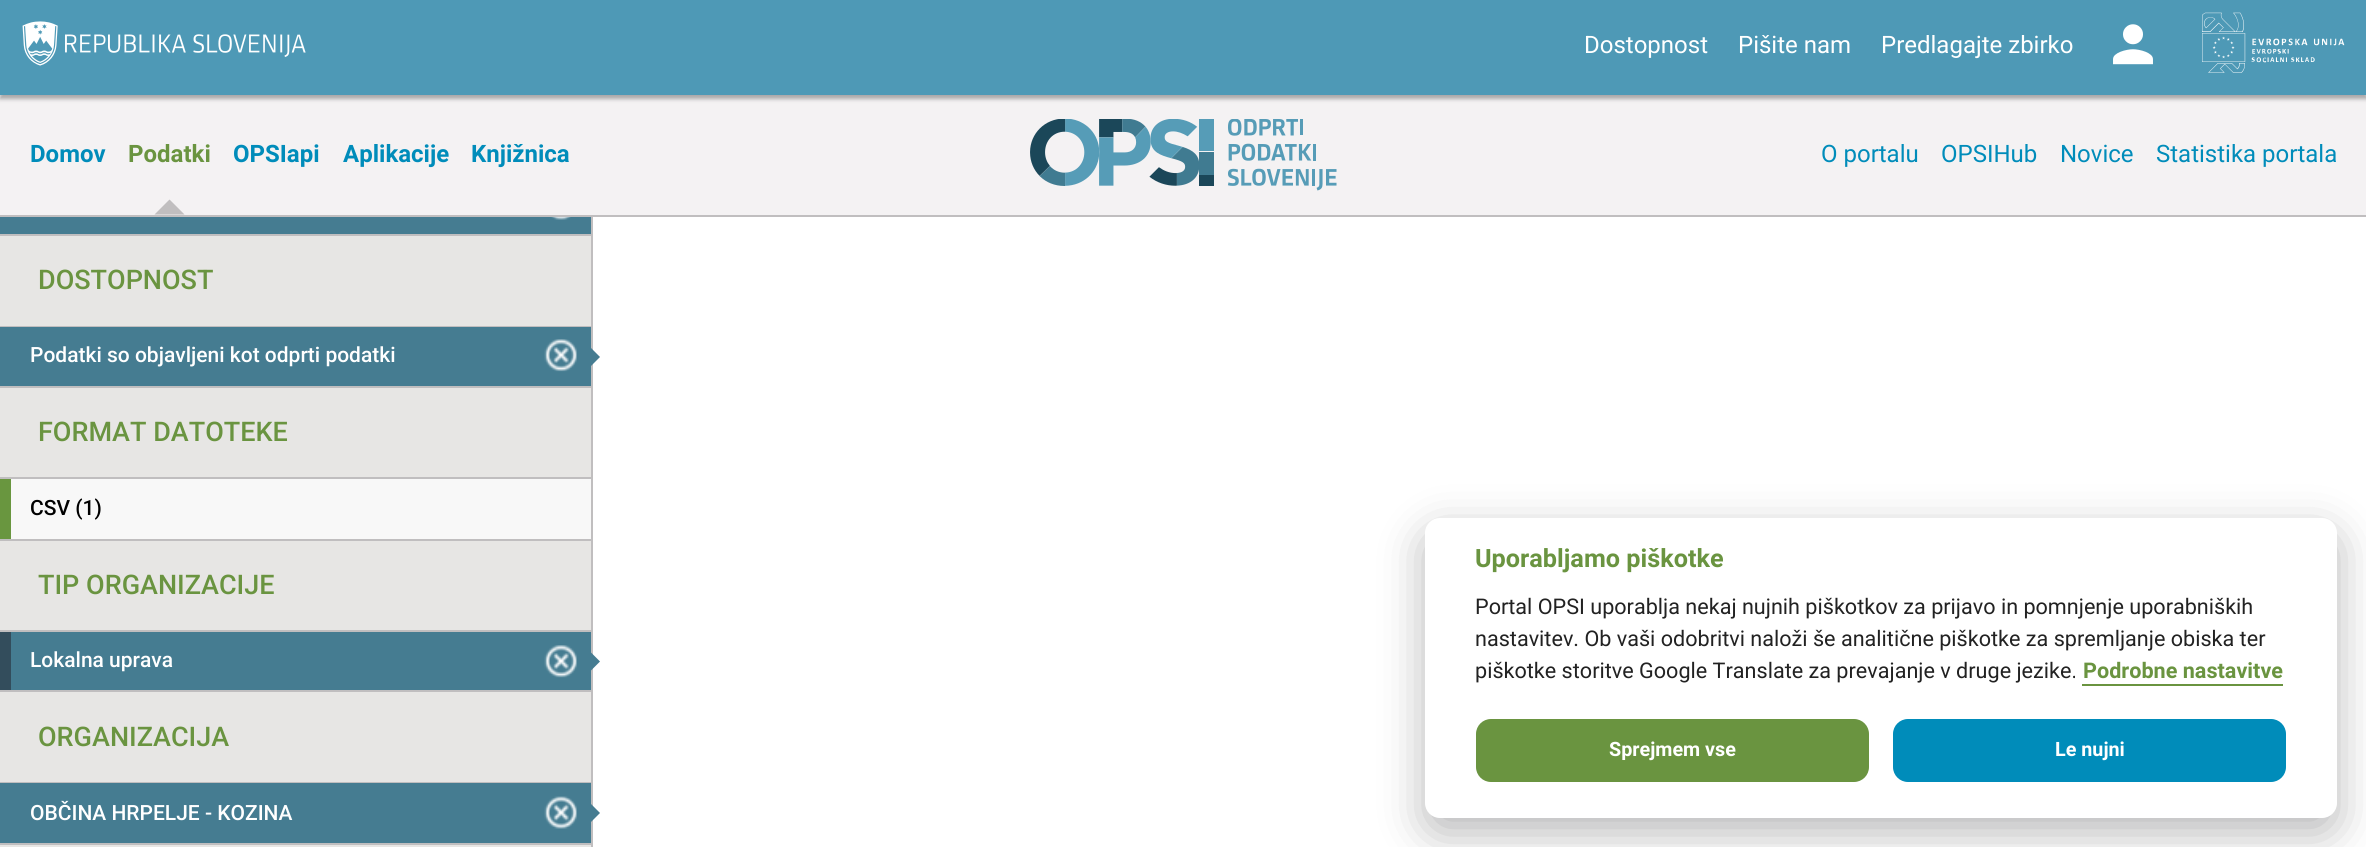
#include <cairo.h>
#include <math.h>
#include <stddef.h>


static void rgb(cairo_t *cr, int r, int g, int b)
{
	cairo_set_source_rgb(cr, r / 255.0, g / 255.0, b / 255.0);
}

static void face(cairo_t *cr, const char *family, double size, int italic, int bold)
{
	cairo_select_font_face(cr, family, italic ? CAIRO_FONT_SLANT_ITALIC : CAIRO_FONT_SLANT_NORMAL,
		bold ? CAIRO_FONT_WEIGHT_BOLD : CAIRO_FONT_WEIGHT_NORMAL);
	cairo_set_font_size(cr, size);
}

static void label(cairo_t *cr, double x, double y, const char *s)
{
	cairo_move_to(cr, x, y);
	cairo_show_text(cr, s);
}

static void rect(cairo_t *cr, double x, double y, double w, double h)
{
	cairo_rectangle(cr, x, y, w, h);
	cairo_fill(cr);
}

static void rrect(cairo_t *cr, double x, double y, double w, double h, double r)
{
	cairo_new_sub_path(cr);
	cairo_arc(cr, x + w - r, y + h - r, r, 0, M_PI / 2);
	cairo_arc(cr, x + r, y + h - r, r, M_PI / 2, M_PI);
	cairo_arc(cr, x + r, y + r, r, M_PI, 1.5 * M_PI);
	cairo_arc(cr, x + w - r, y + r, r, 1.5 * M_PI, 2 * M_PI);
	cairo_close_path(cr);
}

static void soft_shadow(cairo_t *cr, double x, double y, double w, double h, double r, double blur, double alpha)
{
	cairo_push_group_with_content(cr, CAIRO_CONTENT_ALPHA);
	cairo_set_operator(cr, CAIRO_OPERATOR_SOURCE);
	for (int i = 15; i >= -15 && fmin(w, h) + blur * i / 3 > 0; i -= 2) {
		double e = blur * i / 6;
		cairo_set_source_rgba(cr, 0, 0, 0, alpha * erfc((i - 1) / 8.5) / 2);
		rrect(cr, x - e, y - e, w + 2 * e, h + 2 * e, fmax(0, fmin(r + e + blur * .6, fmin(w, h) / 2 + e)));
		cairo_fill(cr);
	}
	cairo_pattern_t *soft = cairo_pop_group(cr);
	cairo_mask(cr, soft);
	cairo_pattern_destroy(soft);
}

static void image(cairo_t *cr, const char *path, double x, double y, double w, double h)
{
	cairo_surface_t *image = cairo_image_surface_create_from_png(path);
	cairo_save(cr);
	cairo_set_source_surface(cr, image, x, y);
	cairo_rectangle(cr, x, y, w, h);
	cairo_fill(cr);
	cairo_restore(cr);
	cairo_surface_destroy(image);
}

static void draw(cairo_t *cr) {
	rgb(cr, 255, 255, 255);
	cairo_paint(cr);
	rgb(cr, 244, 242, 243);
	rect(cr, 0, 95, 2366, 120);
	rgb(cr, 170, 168, 169);
	soft_shadow(cr, 0, 5, 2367, 94, 0, 2, 1);
	rgb(cr, 78, 153, 182);
	rect(cr, 0, 0, 2366, 95);
	image(cr, "image0.png", 22, 21, 284, 45);
	face(cr, "Roboto", 24, 0, 0);
	rgb(cr, 255, 255, 255);
	label(cr, 1584, 53, "Dostopnost");
	label(cr, 1738, 53, "Pišite nam");
	label(cr, 1881, 53, "Predlagajte zbirko");
	image(cr, "image1.png", 2113, 24, 40, 41);
	image(cr, "image2.png", 2202, 12, 143, 61);
	rgb(cr, 192, 190, 191);
	rect(cr, 0, 215, 2366, 2);
	face(cr, "Roboto", 24, 0, 1);
	rgb(cr, 0, 140, 186);
	label(cr, 30, 162, "Domov");
	rgb(cr, 106, 148, 64);
	label(cr, 128, 162, "Podatki");
	rgb(cr, 192, 190, 191);
	cairo_new_path(cr);
	cairo_move_to(cr, 184.5, 214.5);
	cairo_line_to(cr, 154.5, 214.5);
	cairo_line_to(cr, 169.5, 199.5);
	cairo_close_path(cr);
	cairo_fill(cr);
	rgb(cr, 0, 140, 186);
	label(cr, 233, 162, "OPSIapi");
	label(cr, 343, 162, "Aplikacije");
	label(cr, 471, 162, "Knjižnica");
	image(cr, "image3.png", 1030, 119, 307, 72);
	face(cr, "Roboto", 24, 0, 0);
	label(cr, 1821, 162, "O portalu");
	label(cr, 1941, 162, "OPSIHub");
	label(cr, 2060, 162, "Novice");
	label(cr, 2156, 162, "Statistika portala");
	rgb(cr, 192, 190, 191);
	rect(cr, 591, 217, 2, 630);
	rgb(cr, 69, 124, 145);
	rect(cr, 0, 217, 591, 17);
	image(cr, "image4.png", 551, 217, 20, 3);
	rgb(cr, 192, 190, 191);
	rect(cr, 0, 234, 591, 2);
	rgb(cr, 231, 230, 228);
	rect(cr, 0, 236, 591, 90);
	rgb(cr, 192, 190, 191);
	rect(cr, 0, 326, 591, 1);
	face(cr, "Roboto Medium", 27, 0, 0);
	rgb(cr, 106, 148, 64);
	label(cr, 38, 289, "DOSTOPNOST");
	rgb(cr, 69, 124, 145);
	rect(cr, 0, 327, 591, 59);
	image(cr, "image5.png", 544, 339, 33, 33);
	rgb(cr, 192, 190, 191);
	rect(cr, 0, 386, 591, 2);
	face(cr, "Roboto Medium", 21, 0, 0);
	rgb(cr, 255, 255, 255);
	label(cr, 30, 362, "Podatki so objavljeni kot odprti podatki");
	rgb(cr, 69, 124, 145);
	cairo_new_path(cr);
	cairo_move_to(cr, 591, 366);
	cairo_line_to(cr, 591, 348);
	cairo_line_to(cr, 600, 357);
	cairo_close_path(cr);
	cairo_fill(cr);
	rgb(cr, 231, 230, 228);
	rect(cr, 0, 388, 591, 89);
	rgb(cr, 192, 190, 191);
	rect(cr, 0, 477, 591, 2);
	face(cr, "Roboto Medium", 27, 0, 0);
	rgb(cr, 106, 148, 64);
	label(cr, 38, 441, "FORMAT DATOTEKE");
	rgb(cr, 248, 248, 248);
	rect(cr, 11, 479, 580, 60);
	rgb(cr, 192, 190, 191);
	rect(cr, 0, 539, 591, 2);
	rgb(cr, 105, 150, 63);
	rect(cr, 0, 479, 11, 60);
	face(cr, "Roboto Medium", 21, 0, 0);
	rgb(cr, 0, 0, 0);
	label(cr, 30, 515, "CSV (1)");
	rgb(cr, 231, 230, 228);
	rect(cr, 0, 541, 591, 89);
	rgb(cr, 192, 190, 191);
	rect(cr, 0, 630, 591, 2);
	face(cr, "Roboto Medium", 27, 0, 0);
	rgb(cr, 106, 148, 64);
	label(cr, 38, 594, "TIP ORGANIZACIJE");
	rgb(cr, 69, 124, 145);
	rect(cr, 11, 632, 580, 58);
	image(cr, "image6.png", 544, 645, 33, 33);
	rgb(cr, 192, 190, 191);
	rect(cr, 0, 690, 591, 2);
	rgb(cr, 51, 77, 92);
	rect(cr, 0, 632, 11, 58);
	face(cr, "Roboto Medium", 21, 0, 0);
	rgb(cr, 255, 255, 255);
	label(cr, 30, 667, "Lokalna uprava");
	rgb(cr, 69, 124, 145);
	cairo_new_path(cr);
	cairo_move_to(cr, 591, 670.5);
	cairo_line_to(cr, 591, 652.5);
	cairo_line_to(cr, 600, 661.5);
	cairo_close_path(cr);
	cairo_fill(cr);
	rgb(cr, 231, 230, 228);
	rect(cr, 0, 692, 591, 90);
	rgb(cr, 192, 190, 191);
	rect(cr, 0, 782, 591, 1);
	face(cr, "Roboto Medium", 27, 0, 0);
	rgb(cr, 106, 148, 64);
	label(cr, 38, 746, "ORGANIZACIJA");
	rgb(cr, 69, 124, 145);
	rect(cr, 0, 783, 591, 60);
	image(cr, "image7.png", 544, 796, 33, 33);
	rgb(cr, 192, 190, 191);
	rect(cr, 0, 843, 591, 2);
	face(cr, "Roboto Medium", 21, 0, 0);
	rgb(cr, 255, 255, 255);
	label(cr, 30, 820, "OBČINA HRPELJE - KOZINA");
	rgb(cr, 69, 124, 145);
	cairo_new_path(cr);
	cairo_move_to(cr, 591, 822);
	cairo_line_to(cr, 591, 804);
	cairo_line_to(cr, 600, 813);
	cairo_close_path(cr);
	cairo_fill(cr);
	rgb(cr, 231, 230, 228);
	rect(cr, 0, 845, 591, 2);
	rgb(cr, 2, 2, 3);
	soft_shadow(cr, 1425, 533, 912, 300, 15, 22.5, 0.28);
	rgb(cr, 255, 255, 255);
	rrect(cr, 1425, 518, 912, 300, 15);
	cairo_fill(cr);
	face(cr, "Roboto", 25.25, 0, 1);
	rgb(cr, 106, 148, 64);
	label(cr, 1475, 567, "Uporabljamo piškotke");
	face(cr, "Roboto", 21.6, 0, 0);
	rgb(cr, 34, 34, 34);
	label(cr, 1475, 614, "Portal OPSI uporablja nekaj nujnih piškotkov za prijavo in pomnjenje uporabniških");
	label(cr, 1475, 646, "nastavitev. Ob vaši odobritvi naloži še analitične piškotke za spremljanje obiska ter");
	label(cr, 1475, 678, "piškotke storitve Google Translate za prevajanje v druge jezike.");
	face(cr, "Roboto", 21.6, 0, 1);
	rgb(cr, 106, 148, 64);
	label(cr, 2083, 678, "Podrobne nastavitve");
	rect(cr, 2082, 684, 201, 2);
	rrect(cr, 1476, 719, 393, 63, 15);
	cairo_fill(cr);
	face(cr, "Roboto", 19.75, 0, 1);
	rgb(cr, 255, 255, 255);
	label(cr, 1609, 756, "Sprejmem vse");
	rgb(cr, 0, 140, 186);
	rrect(cr, 1893, 719, 393, 63, 15);
	cairo_fill(cr);
	rgb(cr, 255, 255, 255);
	label(cr, 2055, 756, "Le nujni");
}

int main(void) {
	cairo_surface_t *surface = cairo_image_surface_create(CAIRO_FORMAT_RGB24, 2366, 847);
	cairo_t *cr = cairo_create(surface);
	cairo_font_options_t *options = cairo_font_options_create();
	cairo_font_options_set_hint_metrics(options, CAIRO_HINT_METRICS_OFF);
	cairo_font_options_set_hint_style(options, CAIRO_HINT_STYLE_NONE);
	cairo_set_font_options(cr, options);
	cairo_set_miter_limit(cr, 4);
	draw(cr);
	cairo_surface_write_to_png(surface, "render.png");
	cairo_font_options_destroy(options);
	cairo_destroy(cr);
	cairo_surface_destroy(surface);
	return 0;
}
